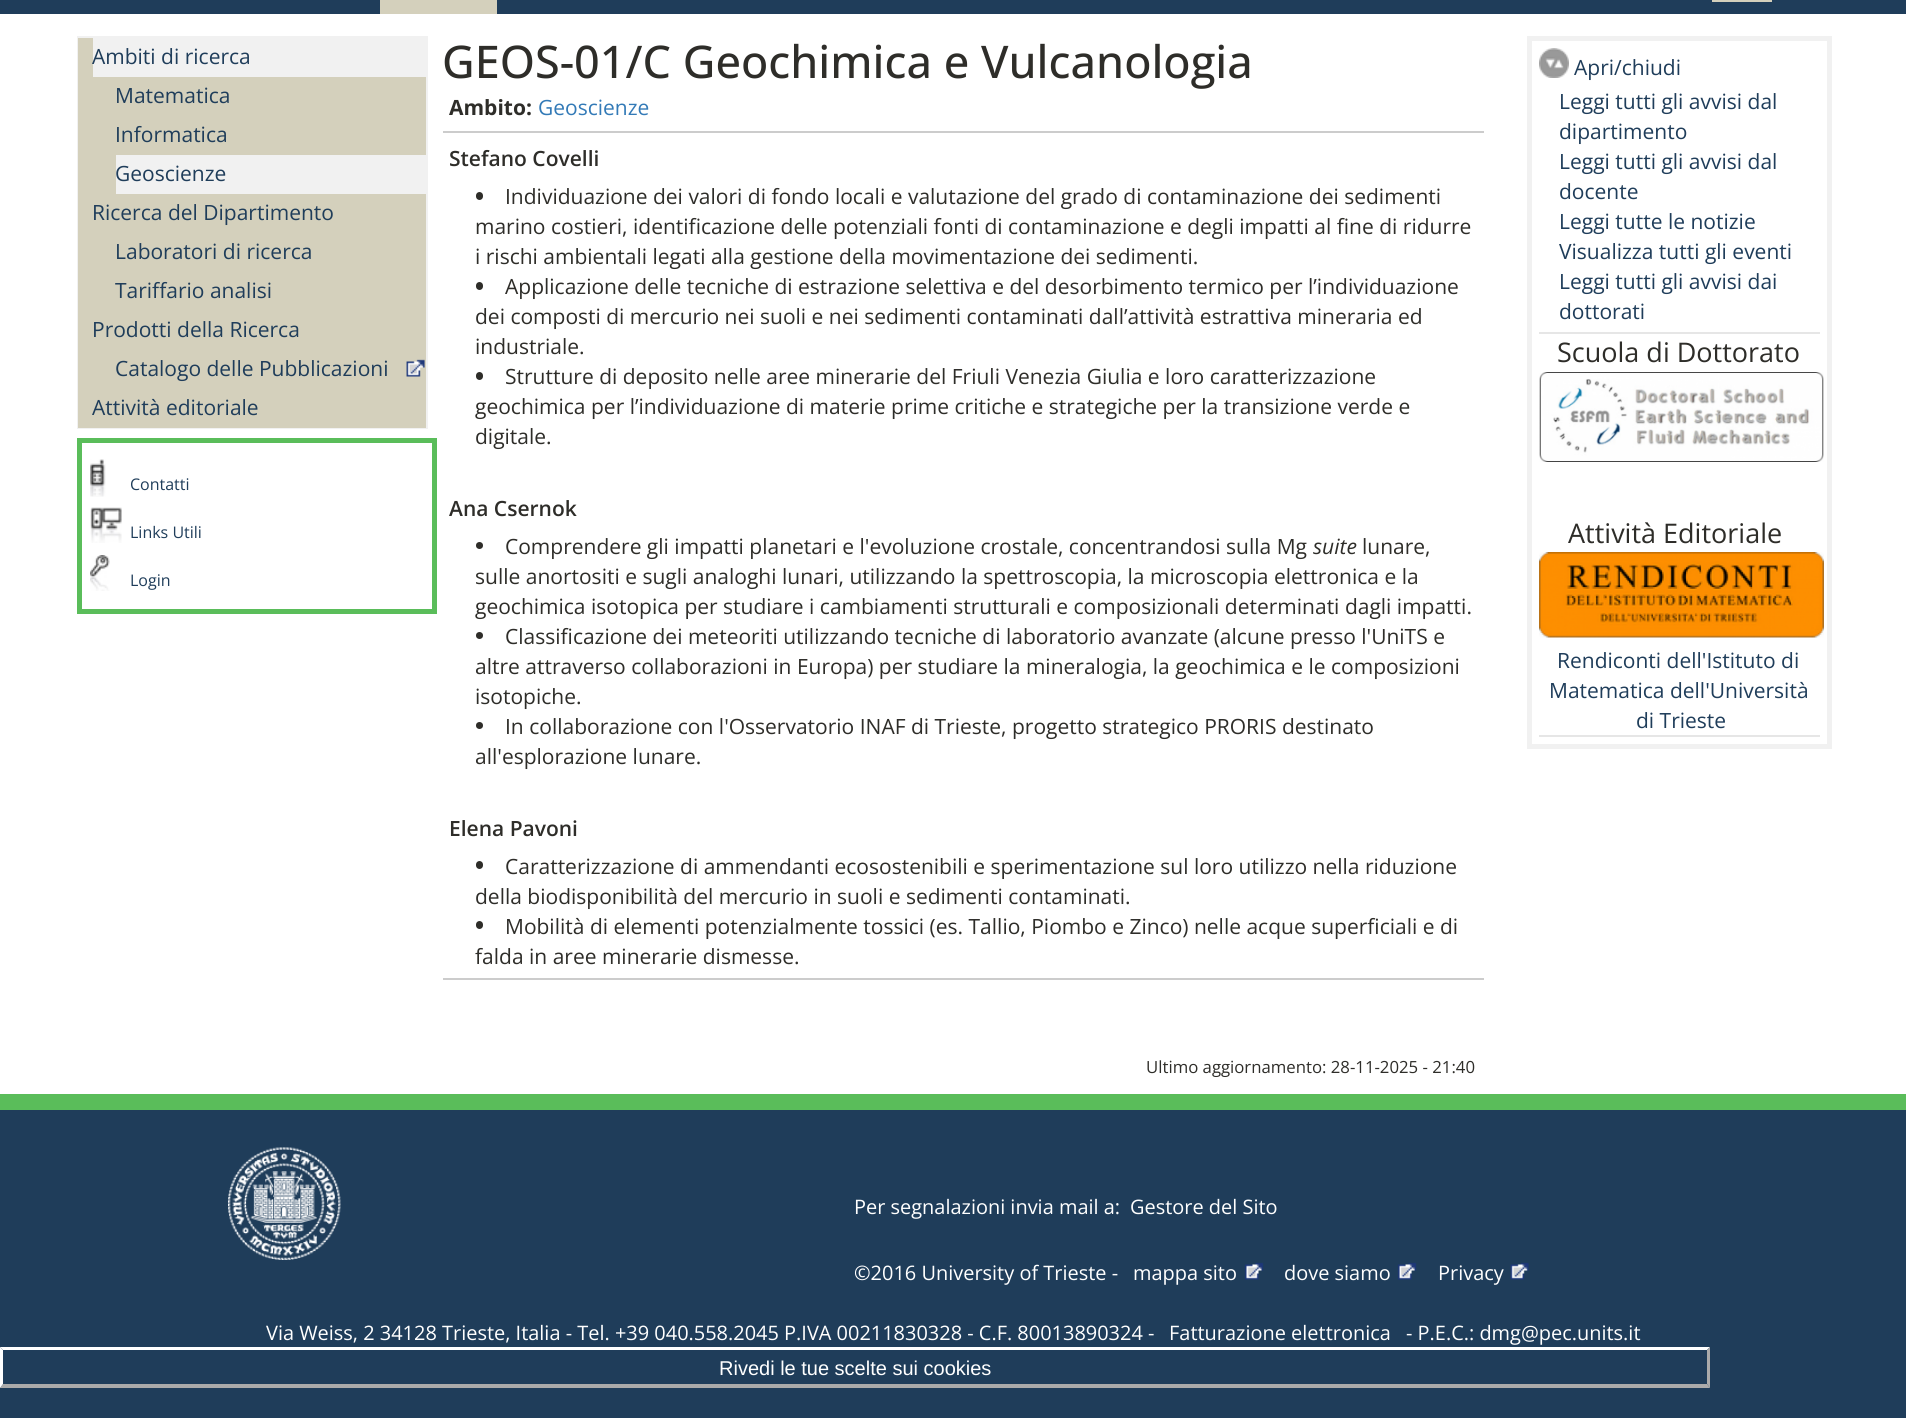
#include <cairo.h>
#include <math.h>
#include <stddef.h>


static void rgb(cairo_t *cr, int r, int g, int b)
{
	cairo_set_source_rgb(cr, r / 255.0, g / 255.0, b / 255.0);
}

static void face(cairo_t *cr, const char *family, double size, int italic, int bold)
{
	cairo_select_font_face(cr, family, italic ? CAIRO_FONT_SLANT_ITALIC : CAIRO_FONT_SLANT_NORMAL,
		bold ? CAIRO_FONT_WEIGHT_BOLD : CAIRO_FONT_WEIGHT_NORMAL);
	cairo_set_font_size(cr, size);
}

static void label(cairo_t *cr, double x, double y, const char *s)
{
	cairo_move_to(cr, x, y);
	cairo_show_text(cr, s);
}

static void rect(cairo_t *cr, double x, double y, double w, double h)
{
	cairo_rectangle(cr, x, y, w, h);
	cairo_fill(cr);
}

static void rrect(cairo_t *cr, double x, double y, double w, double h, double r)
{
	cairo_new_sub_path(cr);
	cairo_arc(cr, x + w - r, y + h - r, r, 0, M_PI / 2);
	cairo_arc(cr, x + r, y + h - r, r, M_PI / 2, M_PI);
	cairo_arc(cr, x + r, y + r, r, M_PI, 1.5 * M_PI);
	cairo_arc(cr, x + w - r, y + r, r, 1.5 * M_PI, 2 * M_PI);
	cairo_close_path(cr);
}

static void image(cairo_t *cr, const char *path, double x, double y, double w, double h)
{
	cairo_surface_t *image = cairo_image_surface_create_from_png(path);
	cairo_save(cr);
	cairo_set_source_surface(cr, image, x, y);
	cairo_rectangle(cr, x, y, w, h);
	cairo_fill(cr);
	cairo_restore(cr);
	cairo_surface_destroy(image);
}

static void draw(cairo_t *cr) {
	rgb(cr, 255, 255, 255);
	cairo_paint(cr);
	rgb(cr, 31, 61, 90);
	rect(cr, 0, 0, 1906, 14);
	rgb(cr, 212, 208, 188);
	rect(cr, 380, 0, 117, 14);
	rect(cr, 1712, 0, 60, 2);
	cairo_rectangle(cr, 78, 37, 349, 391);
	rgb(cr, 241, 241, 241);
	cairo_stroke(cr);
	rgb(cr, 212, 208, 188);
	rect(cr, 78, 38, 348, 390);
	rgb(cr, 241, 241, 241);
	rect(cr, 93, 38, 333, 39);
	face(cr, "Open Sans", 21, 0, 0);
	rgb(cr, 31, 61, 90);
	label(cr, 92, 64, "Ambiti di ricerca");
	label(cr, 115, 103, "Matematica");
	label(cr, 115, 142, "Informatica");
	rgb(cr, 241, 241, 241);
	rect(cr, 116, 155, 310, 39);
	rgb(cr, 31, 61, 90);
	label(cr, 115, 181, "Geoscienze");
	label(cr, 92, 220, "Ricerca del Dipartimento");
	label(cr, 115, 259, "Laboratori di ricerca");
	label(cr, 115, 298, "Tariffario analisi");
	label(cr, 92, 337, "Prodotti della Ricerca");
	image(cr, "image0.png", 406, 359, 19, 18);
	label(cr, 115, 376, "Catalogo delle Pubblicazioni");
	label(cr, 92, 415, "Attività editoriale");
	cairo_rectangle(cr, 79.5, 440.5, 355, 171);
	rgb(cr, 90, 189, 90);
	cairo_set_line_width(cr, 5);
	cairo_stroke(cr);
	image(cr, "image1.png", 90, 459, 16, 38);
	face(cr, "Open Sans", 16, 0, 0);
	rgb(cr, 31, 61, 90);
	label(cr, 130, 490, "Contatti");
	image(cr, "image2.png", 90, 507, 32, 36);
	label(cr, 130, 538, "Links Utili");
	image(cr, "image3.png", 90, 555, 20, 36);
	label(cr, 130, 586, "Login");
	face(cr, "Open Sans Medium", 45, 0, 0);
	rgb(cr, 46, 45, 41);
	label(cr, 442, 78, "GEOS-01/C Geochimica e Vulcanologia");
	rgb(cr, 204, 204, 204);
	rect(cr, 443, 131, 1041, 2);
	face(cr, "Open Sans", 21, 0, 1);
	rgb(cr, 46, 45, 41);
	label(cr, 449, 115, "Ambito:");
	face(cr, "Open Sans", 21, 0, 0);
	rgb(cr, 51, 122, 183);
	label(cr, 538, 115, "Geoscienze");
	rgb(cr, 204, 204, 204);
	rect(cr, 443, 978, 1041, 2);
	face(cr, "Open Sans SemiBold", 21, 0, 0);
	rgb(cr, 46, 45, 41);
	label(cr, 449, 166, "Stefano Covelli");
	rrect(cr, 476, 192, 7, 8, 3.5);
	cairo_fill(cr);
	face(cr, "Open Sans", 21, 0, 0);
	label(cr, 505, 204, "Individuazione dei valori di fondo locali e valutazione del grado di contaminazione dei sedimenti");
	label(cr, 475, 234, "marino costieri, identificazione delle potenziali fonti di contaminazione e degli impatti al fine di ridurre");
	label(cr, 475, 264, "i rischi ambientali legati alla gestione della movimentazione dei sedimenti.");
	rrect(cr, 476, 282, 7, 8, 3.5);
	cairo_fill(cr);
	label(cr, 505, 294, "Applicazione delle tecniche di estrazione selettiva e del desorbimento termico per l’individuazione");
	label(cr, 475, 324, "dei composti di mercurio nei suoli e nei sedimenti contaminati dall’attività estrattiva mineraria ed");
	label(cr, 475, 354, "industriale.");
	rrect(cr, 476, 372, 7, 8, 3.5);
	cairo_fill(cr);
	label(cr, 505, 384, "Strutture di deposito nelle aree minerarie del Friuli Venezia Giulia e loro caratterizzazione");
	label(cr, 475, 414, "geochimica per l’individuazione di materie prime critiche e strategiche per la transizione verde e");
	label(cr, 475, 444, "digitale.");
	face(cr, "Open Sans SemiBold", 21, 0, 0);
	label(cr, 449, 516, "Ana Csernok");
	cairo_new_path(cr);
	cairo_arc(cr, 479.5, 545.5, 3.5, 0, 2 * M_PI);
	cairo_fill(cr);
	face(cr, "Open Sans", 21, 0, 0);
	label(cr, 505, 554, "Comprendere gli impatti planetari e l'evoluzione crostale, concentrandosi sulla Mg");
	face(cr, "Open Sans", 21, 1, 0);
	label(cr, 1313, 554, "suite");
	face(cr, "Open Sans", 21, 0, 0);
	label(cr, 1362, 554, "lunare,");
	label(cr, 475, 584, "sulle anortositi e sugli analoghi lunari, utilizzando la spettroscopia, la microscopia elettronica e la");
	label(cr, 475, 614, "geochimica isotopica per studiare i cambiamenti strutturali e composizionali determinati dagli impatti.");
	cairo_new_path(cr);
	cairo_arc(cr, 479.5, 635.5, 3.5, 0, 2 * M_PI);
	cairo_fill(cr);
	label(cr, 505, 644, "Classificazione dei meteoriti utilizzando tecniche di laboratorio avanzate (alcune presso l'UniTS e");
	label(cr, 475, 674, "altre attraverso collaborazioni in Europa) per studiare la mineralogia, la geochimica e le composizioni");
	label(cr, 475, 704, "isotopiche.");
	cairo_new_path(cr);
	cairo_arc(cr, 479.5, 725.5, 3.5, 0, 2 * M_PI);
	cairo_fill(cr);
	label(cr, 505, 734, "In collaborazione con l'Osservatorio INAF di Trieste, progetto strategico PRORIS destinato");
	label(cr, 475, 764, "all'esplorazione lunare.");
	face(cr, "Open Sans SemiBold", 21, 0, 0);
	label(cr, 449, 836, "Elena Pavoni");
	rrect(cr, 476, 861, 7, 8, 3.5);
	cairo_fill(cr);
	face(cr, "Open Sans", 21, 0, 0);
	label(cr, 505, 874, "Caratterizzazione di ammendanti ecosostenibili e sperimentazione sul loro utilizzo nella riduzione");
	label(cr, 475, 904, "della biodisponibilità del mercurio in suoli e sedimenti contaminati.");
	rrect(cr, 476, 921, 7, 8, 3.5);
	cairo_fill(cr);
	label(cr, 505, 934, "Mobilità di elementi potenzialmente tossici (es. Tallio, Piombo e Zinco) nelle acque superficiali e di");
	label(cr, 475, 964, "falda in aree minerarie dismesse.");
	face(cr, "Open Sans", 16.75, 0, 0);
	label(cr, 1146, 1073, "Ultimo aggiornamento: 28-11-2025 - 21:40");
	cairo_rectangle(cr, 1529.5, 38.5, 300, 708);
	rgb(cr, 241, 241, 241);
	cairo_stroke(cr);
	image(cr, "image4.png", 1539, 48, 30, 30);
	face(cr, "Open Sans", 21, 0, 0);
	rgb(cr, 31, 61, 90);
	label(cr, 1574, 75, "Apri/chiudi");
	rgb(cr, 230, 230, 230);
	rect(cr, 1539, 332, 281, 2);
	rgb(cr, 31, 61, 90);
	label(cr, 1559, 109, "Leggi tutti gli avvisi dal");
	label(cr, 1559, 139, "dipartimento");
	label(cr, 1559, 169, "Leggi tutti gli avvisi dal");
	label(cr, 1559, 199, "docente");
	label(cr, 1559, 229, "Leggi tutte le notizie");
	label(cr, 1559, 259, "Visualizza tutti gli eventi");
	label(cr, 1559, 289, "Leggi tutti gli avvisi dai");
	label(cr, 1559, 319, "dottorati");
	rgb(cr, 230, 230, 230);
	rect(cr, 1539, 735, 281, 2);
	face(cr, "Open Sans", 27, 0, 0);
	rgb(cr, 46, 45, 41);
	label(cr, 1557, 362, "Scuola di Dottorato");
	image(cr, "image5.png", 1539, 372, 285, 90);
	label(cr, 1568, 543, "Attività Editoriale");
	image(cr, "image6.png", 1539, 552, 285, 86);
	face(cr, "Open Sans", 21, 0, 0);
	rgb(cr, 31, 61, 90);
	label(cr, 1557, 668, "Rendiconti dell'Istituto di");
	label(cr, 1549, 698, "Matematica dell'Università");
	label(cr, 1636, 728, "di Trieste");
	rect(cr, 0, 1110, 1906, 308);
	rgb(cr, 90, 189, 90);
	rect(cr, 0, 1094, 1906, 16);
	image(cr, "image7.png", 228, 1147, 113, 113);
	face(cr, "Open Sans", 19.95, 0, 0);
	rgb(cr, 255, 255, 255);
	label(cr, 854, 1214, "Per segnalazioni invia mail a:");
	label(cr, 1130, 1214, "Gestore del Sito");
	label(cr, 854, 1280, "©2016 University of Trieste -");
	label(cr, 1133, 1280, "mappa sito");
	image(cr, "image8.png", 1244, 1262, 20, 18);
	label(cr, 1284, 1280, "dove siamo");
	image(cr, "image9.png", 1397, 1262, 20, 18);
	label(cr, 1438, 1280, "Privacy");
	image(cr, "image10.png", 1510, 1262, 19, 18);
	label(cr, 266, 1340, "Via Weiss, 2 34128 Trieste, Italia - Tel. +39 040.558.2045 P.IVA 00211830328 - C.F. 80013890324 -");
	label(cr, 1169, 1340, "Fatturazione elettronica");
	label(cr, 1406, 1340, "- P.E.C.: dmg@pec.units.it");
	cairo_new_path(cr);
	cairo_move_to(cr, 0, 1347);
	cairo_line_to(cr, 1710, 1347);
	cairo_line_to(cr, 1707, 1350);
	cairo_line_to(cr, 3, 1350);
	cairo_close_path(cr);
	cairo_fill(cr);
	rgb(cr, 170, 170, 170);
	cairo_new_path(cr);
	cairo_move_to(cr, 1710, 1347);
	cairo_line_to(cr, 1710, 1388);
	cairo_line_to(cr, 1707, 1384);
	cairo_line_to(cr, 1707, 1350);
	cairo_close_path(cr);
	cairo_fill(cr);
	cairo_new_path(cr);
	cairo_move_to(cr, 1710, 1388);
	cairo_line_to(cr, 0, 1388);
	cairo_line_to(cr, 3, 1384);
	cairo_line_to(cr, 1707, 1384);
	cairo_close_path(cr);
	cairo_fill(cr);
	rgb(cr, 255, 255, 255);
	cairo_new_path(cr);
	cairo_move_to(cr, 0, 1388);
	cairo_line_to(cr, 0, 1347);
	cairo_line_to(cr, 3, 1350);
	cairo_line_to(cr, 3, 1384);
	cairo_close_path(cr);
	cairo_fill(cr);
	face(cr, "Liberation Sans", 20, 0, 0);
	label(cr, 719, 1375, "Rivedi le tue scelte sui cookies");
}

int main(void) {
	cairo_surface_t *surface = cairo_image_surface_create(CAIRO_FORMAT_RGB24, 1906, 1418);
	cairo_t *cr = cairo_create(surface);
	cairo_font_options_t *options = cairo_font_options_create();
	cairo_font_options_set_hint_metrics(options, CAIRO_HINT_METRICS_OFF);
	cairo_font_options_set_hint_style(options, CAIRO_HINT_STYLE_NONE);
	cairo_set_font_options(cr, options);
	cairo_set_miter_limit(cr, 4);
	draw(cr);
	cairo_surface_write_to_png(surface, "render.png");
	cairo_font_options_destroy(options);
	cairo_destroy(cr);
	cairo_surface_destroy(surface);
	return 0;
}
